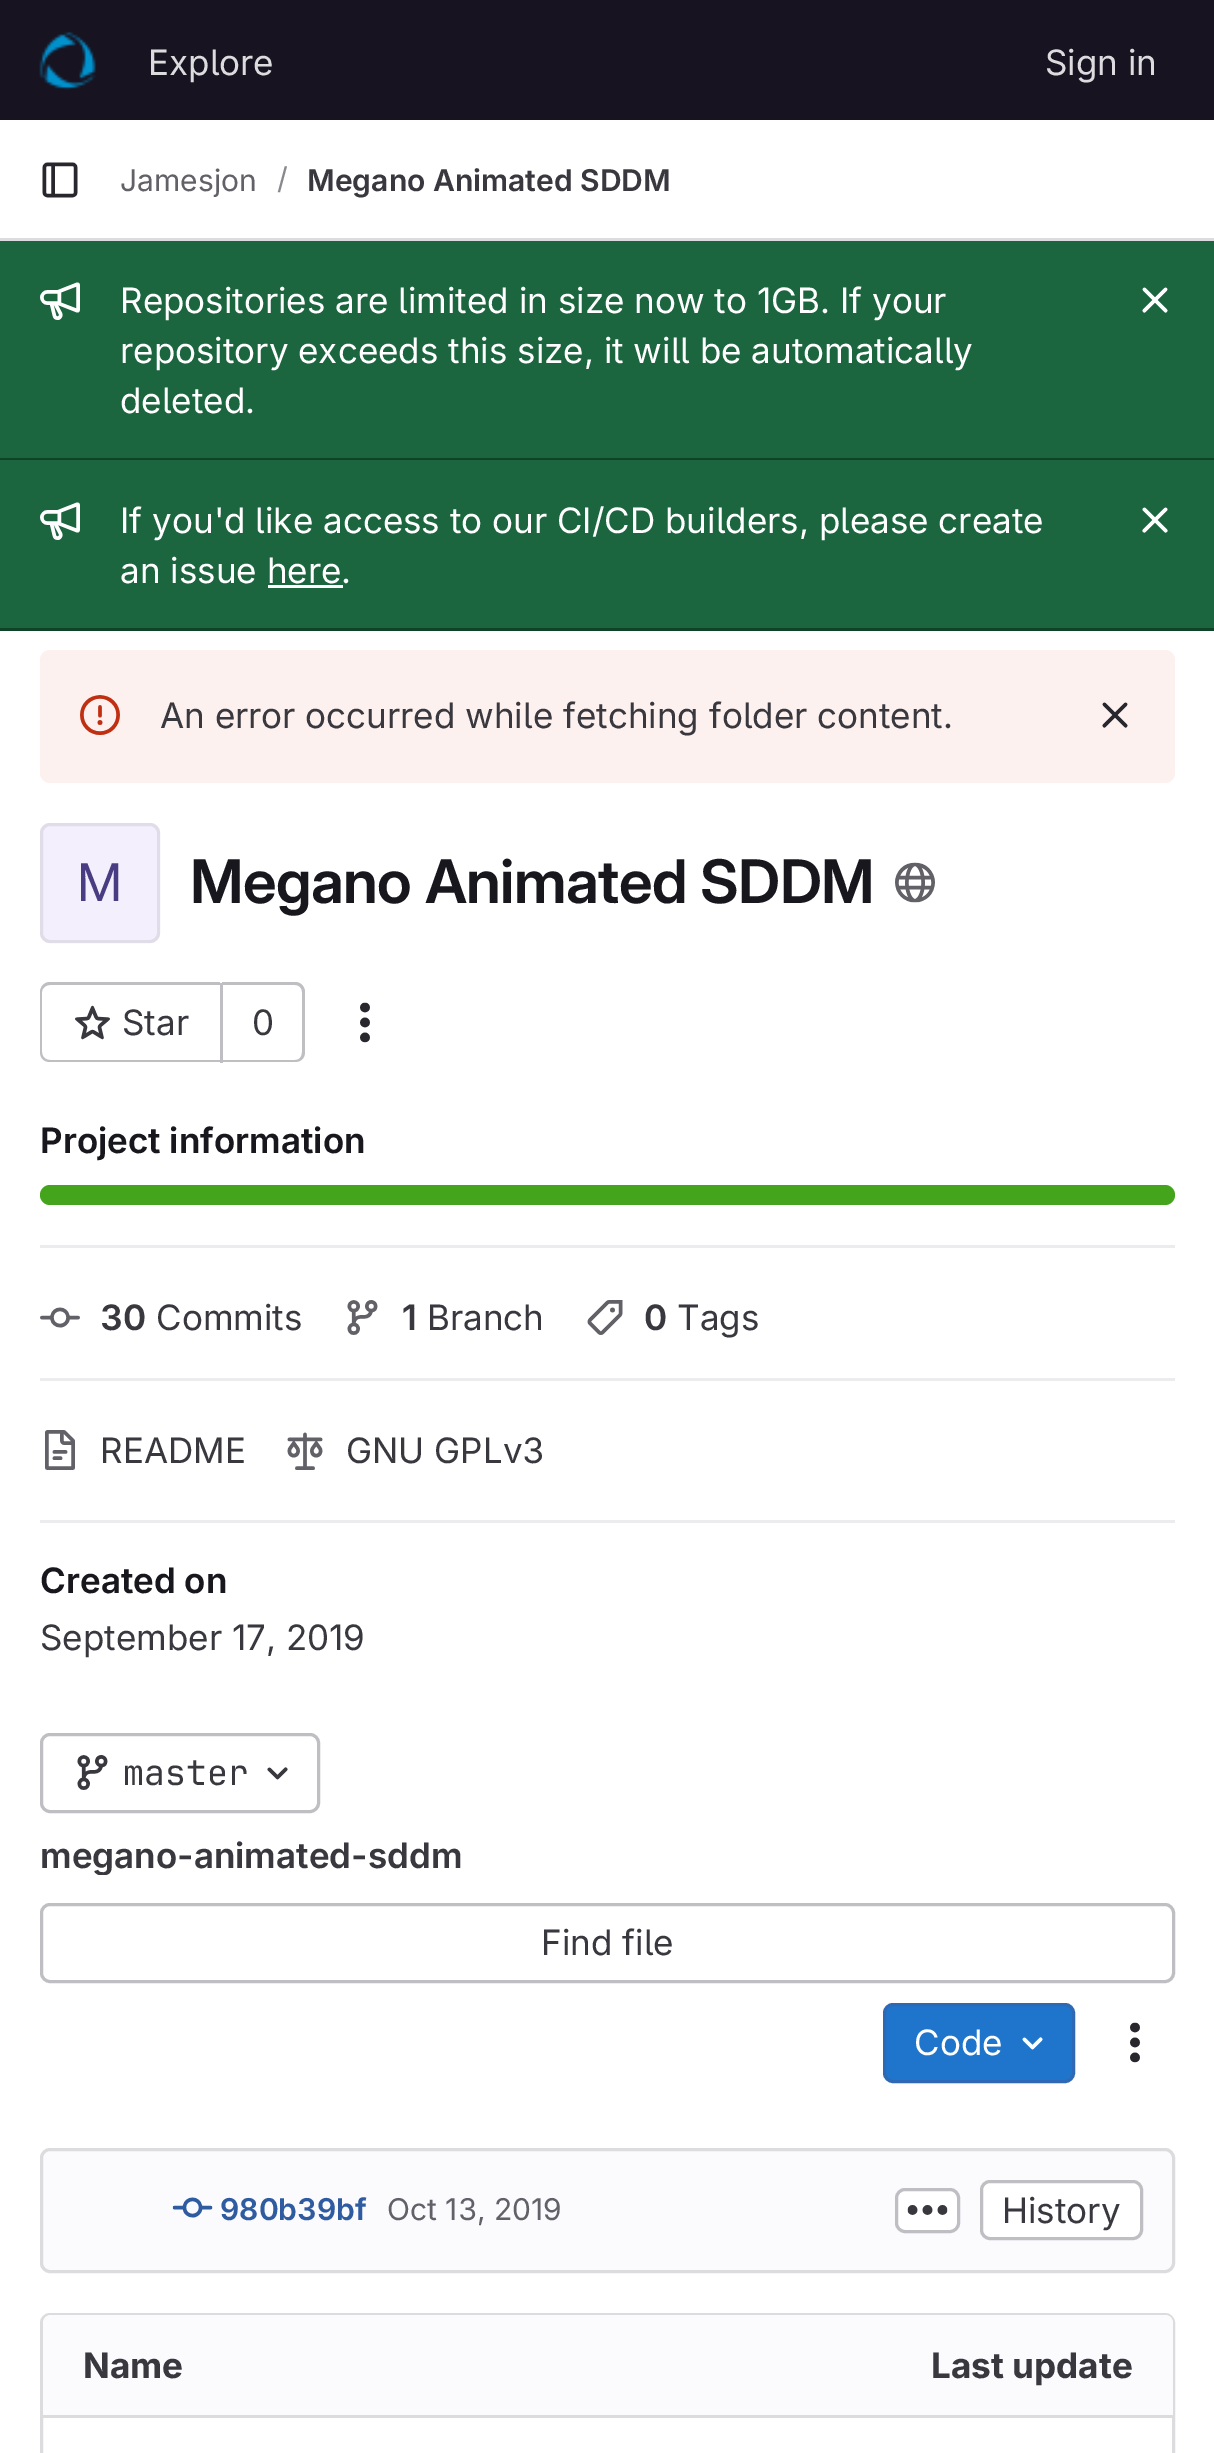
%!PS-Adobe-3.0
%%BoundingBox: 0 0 1214 2453
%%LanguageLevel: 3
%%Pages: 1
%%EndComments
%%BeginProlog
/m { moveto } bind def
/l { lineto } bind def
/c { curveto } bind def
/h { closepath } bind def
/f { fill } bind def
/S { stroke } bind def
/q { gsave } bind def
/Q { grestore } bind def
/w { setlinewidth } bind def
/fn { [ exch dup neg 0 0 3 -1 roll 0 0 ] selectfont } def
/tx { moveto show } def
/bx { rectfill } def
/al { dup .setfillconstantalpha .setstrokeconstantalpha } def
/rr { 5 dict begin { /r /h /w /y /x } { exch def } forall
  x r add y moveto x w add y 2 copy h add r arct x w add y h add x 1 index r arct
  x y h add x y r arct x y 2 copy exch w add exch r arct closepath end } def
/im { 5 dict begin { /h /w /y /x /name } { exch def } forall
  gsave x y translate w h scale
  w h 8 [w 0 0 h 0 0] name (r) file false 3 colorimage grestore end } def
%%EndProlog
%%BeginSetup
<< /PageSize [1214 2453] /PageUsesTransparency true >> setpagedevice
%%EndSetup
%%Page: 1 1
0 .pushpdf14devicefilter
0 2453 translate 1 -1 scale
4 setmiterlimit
1 setgray
0 0 1214 2453 bx
0.09 0.075 0.129 setrgbcolor
0 0 1214 120 bx
(image0.raw) 39 31 57 59 im
/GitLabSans-Regular 35 fn
0.863 0.863 0.871 setrgbcolor
(Explore) 148 75 tx
(Sign in) 1045 75 tx
0 238 1214 3 bx
(image1.raw) 42 162 36 36 im
/GitLabSans-Regular 30 fn
0.384 0.38 0.408 setrgbcolor
(Jamesjon) 120 191 tx
0.537 0.533 0.553 setrgbcolor
(/) 277 189 tx
/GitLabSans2-SemiBold 30 fn
0.227 0.22 0.247 setrgbcolor
(Megano Animated SDDM) 307 191 tx
0.106 0.396 0.247 setrgbcolor
0 241 1214 217 bx
0.055 0.263 0.157 setrgbcolor
0 458 1214 2 bx
(image2.raw) 40 282 40 38 im
/GitLabSans-Regular 35 fn
1 setgray
(Repositories are limited in size now to 1GB. If your) 120 313 tx
(repository exceeds this size, it will be automatically) 120 363 tx
(deleted.) 120 413 tx
(image3.raw) 1142 287 26 26 im
0.106 0.396 0.247 setrgbcolor
0 460 1214 168 bx
0.055 0.263 0.157 setrgbcolor
0 628 1214 3 bx
(image4.raw) 40 502 40 38 im
1 setgray
(If you'd like access to our CI/CD builders, please create) 120 533 tx
(an issue here.) 120 583 tx
268 585 75 3 bx
(image5.raw) 1142 507 26 26 im
0.988 0.945 0.937 setrgbcolor
40 650 1135 133 10 rr f
(image6.raw) 80 695 40 40 im
0.227 0.22 0.247 setrgbcolor
(An error occurred while fetching folder content.) 160 728 tx
(image7.raw) 1102 702 26 26 im
0.953 0.937 0.988 setrgbcolor
40 823 120 120 10 rr f
0.08 al
0.02 0.02 0.024 setrgbcolor
3 w
41.5 824.5 117 117 8.5 rr S
/GitLabSans2-Regular 52 fn
1 al
0.286 0.235 0.514 setrgbcolor
(M) 77 901 tx
/GitLabSans-SemiBold 60 fn
0.094 0.09 0.114 setrgbcolor
190 903 m -0.6 0 (Megano Animated SDDM) ashow
(image8.raw) 895 862 40 41 im
0.749 0.749 0.765 setrgbcolor
50 982 m 220 982 l 220 1062 l 50 1062 l 44 1062 40 1058 40 1052 c 40 992 l 40 987 44 982 50 982 c h 50 985 m 220 985 l 220 1060 l 50 1060 l 46 1060 42 1057 42 1052 c 42 992 l 42 988 46 985 50 985 c h eofill
(image9.raw) 75 1005 35 35 im
/GitLabSans-Regular 35 fn
0.227 0.22 0.247 setrgbcolor
(Star) 122 1035 tx
0.749 0.749 0.765 setrgbcolor
222 982 m 295 982 l 301 982 305 987 305 992 c 305 1052 l 305 1058 301 1062 295 1062 c 222 1062 l h 222 985 m 295 985 l 299 985 302 988 302 992 c 302 1052 l 302 1057 299 1060 295 1060 c 222 1060 l h eofill
220 983 3 80 bx
0.227 0.22 0.247 setrgbcolor
(0) 252 1035 tx
(image10.raw) 360 1002 10 41 im
0.925 0.925 0.937 setrgbcolor
40 1245 1135 3 bx
/GitLabSans2-SemiBold 35 fn
0.094 0.09 0.114 setrgbcolor
(Project information) 40 1153 tx
0.267 0.647 0.11 setrgbcolor
40 1185 1135 20 10 rr f
0.925 0.925 0.937 setrgbcolor
40 1378 1135 3 bx
(image11.raw) 40 1307 40 21 im
0.227 0.22 0.247 setrgbcolor
(30) 100 1330 tx
/GitLabSans-Regular 35 fn
(Commits) 156 1330 tx
(image12.raw) 347 1300 31 35 im
/GitLabSans2-SemiBold 35 fn
(1) 402 1330 tx
/GitLabSans-Regular 35 fn
(Branch) 427 1330 tx
(image13.raw) 587 1300 36 35 im
/GitLabSans2-SemiBold 35 fn
(0) 644 1330 tx
/GitLabSans-Regular 35 fn
(Tags) 677 1330 tx
0.925 0.925 0.937 setrgbcolor
40 1520 1135 3 bx
(image14.raw) 45 1430 30 40 im
0.227 0.22 0.247 setrgbcolor
(README) 100 1463 tx
(image15.raw) 287 1432 36 38 im
(GNU GPLv3) 346 1463 tx
/GitLabSans2-SemiBold 35 fn
0.094 0.09 0.114 setrgbcolor
(Created on) 40 1593 tx
/GitLabSans-Regular 35 fn
0.227 0.22 0.247 setrgbcolor
(September 17, 2019) 40 1650 tx
0.749 0.749 0.765 setrgbcolor
41.5 1734.5 277 77 8.5 rr S
(image16.raw) 77 1755 31 35 im
/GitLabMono-Regular 35 fn
0.227 0.22 0.247 setrgbcolor
(master) 123 1785 tx
(image17.raw) 267 1767 21 13 im
q
40 1833 423 42 10 rr clip newpath
/GitLabSans2-SemiBold 35 fn
(megano-animated-sddm) 40 1868 tx
Q
0.749 0.749 0.765 setrgbcolor
41.5 1904.5 1132 77 8.5 rr S
/GitLabSans-Regular 35 fn
0.227 0.22 0.247 setrgbcolor
(Find file) 541 1955 tx
0.122 0.459 0.796 setrgbcolor
884.5 2004.5 189 77 8.5 rr q f Q
0.184 0.408 0.706 setrgbcolor
S
1 setgray
(Code) 914 2055 tx
(image18.raw) 1022 2037 21 13 im
(image19.raw) 1130 2022 10 41 im
0.984 0.98 0.992 setrgbcolor
41.5 2149.5 1132 122 8.5 rr q f Q
0.863 0.863 0.871 setrgbcolor
S
(image20.raw) 172 2197 41 21 im
/GitLabSans2-SemiBold 30 fn
0.184 0.361 0.627 setrgbcolor
(980b39bf) 220 2220 tx
/GitLabSans-Regular 30 fn
0.384 0.38 0.408 setrgbcolor
(Oct 13, 2019) 387 2220 tx
1 setgray
896.5 2189.5 62 42 8.5 rr q f Q
0.749 0.749 0.765 setrgbcolor
S
(image21.raw) 907 2205 41 10 im
1 setgray
981.5 2181.5 160 57 8.5 rr q f Q
0.749 0.749 0.765 setrgbcolor
S
/GitLabSans-Regular 35 fn
0.227 0.22 0.247 setrgbcolor
(History) 1002 2223 tx
0.863 0.863 0.871 setrgbcolor
41.5 2314.5 1132 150 8.5 rr S
0.984 0.98 0.992 setrgbcolor
51 2315 m 608 2315 l 608 2418 l 43 2418 l 43 2323 l 43 2318.5 46.5 2315 51 2315 c h f
/GitLabSans-Bold 35 fn
0.227 0.22 0.247 setrgbcolor
(Name) 83 2378 tx
0.984 0.98 0.992 setrgbcolor
608 2315 m 1165 2315 l 1169.5 2315 1173 2318.5 1173 2323 c 1173 2418 l 608 2418 l h f
0.227 0.22 0.247 setrgbcolor
(Last update) 931 2378 tx
0.863 0.863 0.871 setrgbcolor
43 2415 1130 3 bx
.poppdf14devicefilter showpage
%%EOF
